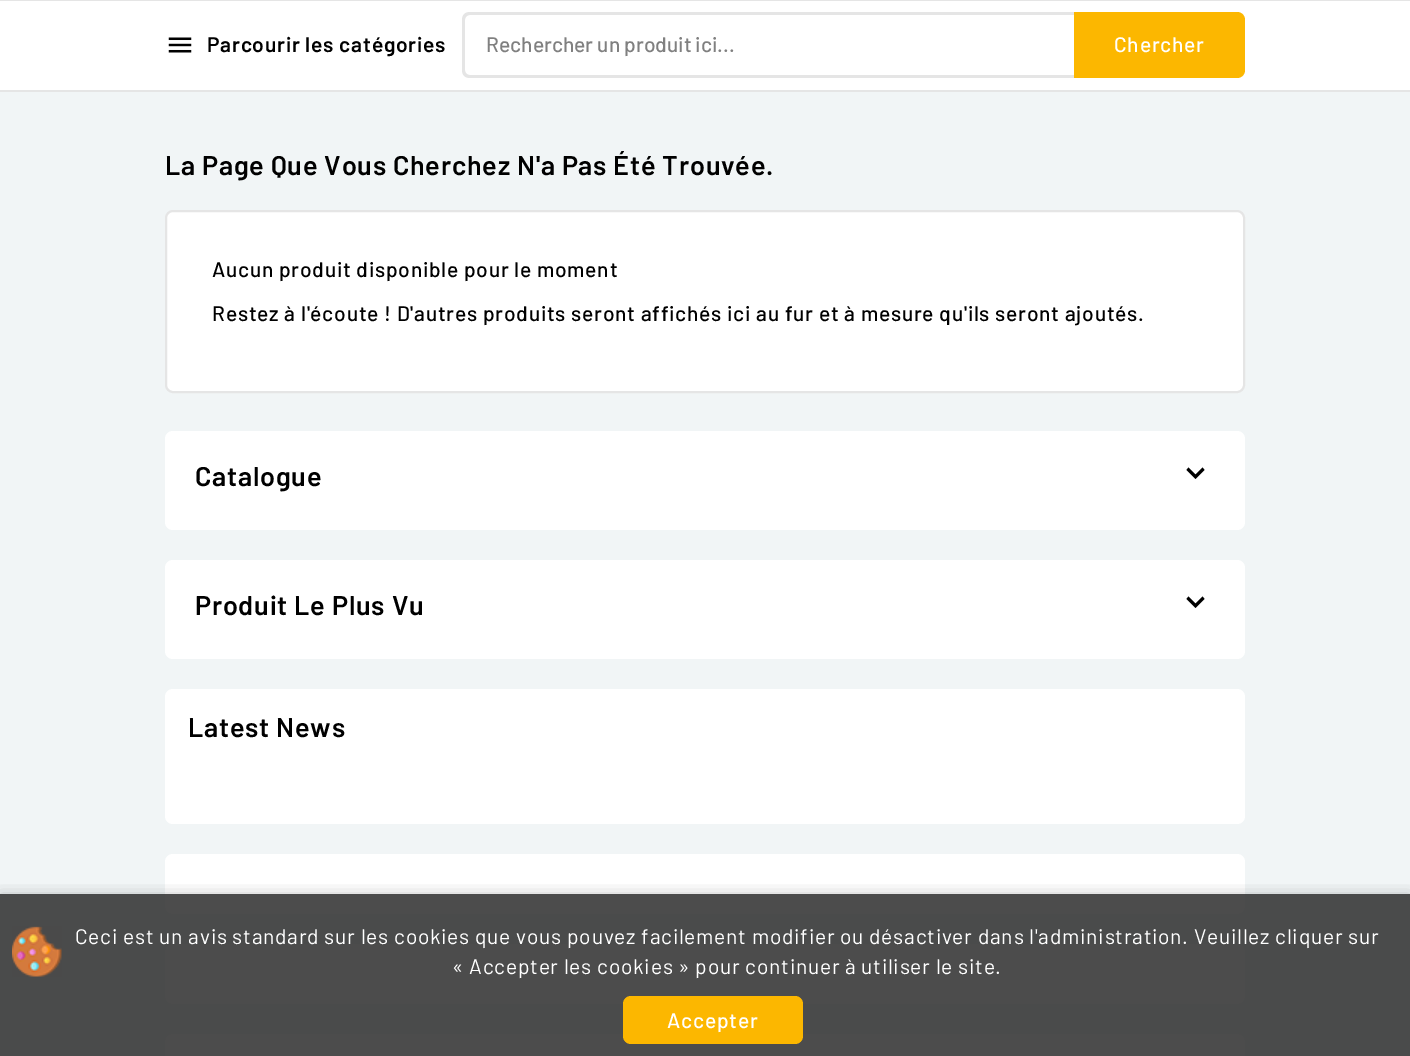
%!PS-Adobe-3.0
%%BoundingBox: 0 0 1410 1056
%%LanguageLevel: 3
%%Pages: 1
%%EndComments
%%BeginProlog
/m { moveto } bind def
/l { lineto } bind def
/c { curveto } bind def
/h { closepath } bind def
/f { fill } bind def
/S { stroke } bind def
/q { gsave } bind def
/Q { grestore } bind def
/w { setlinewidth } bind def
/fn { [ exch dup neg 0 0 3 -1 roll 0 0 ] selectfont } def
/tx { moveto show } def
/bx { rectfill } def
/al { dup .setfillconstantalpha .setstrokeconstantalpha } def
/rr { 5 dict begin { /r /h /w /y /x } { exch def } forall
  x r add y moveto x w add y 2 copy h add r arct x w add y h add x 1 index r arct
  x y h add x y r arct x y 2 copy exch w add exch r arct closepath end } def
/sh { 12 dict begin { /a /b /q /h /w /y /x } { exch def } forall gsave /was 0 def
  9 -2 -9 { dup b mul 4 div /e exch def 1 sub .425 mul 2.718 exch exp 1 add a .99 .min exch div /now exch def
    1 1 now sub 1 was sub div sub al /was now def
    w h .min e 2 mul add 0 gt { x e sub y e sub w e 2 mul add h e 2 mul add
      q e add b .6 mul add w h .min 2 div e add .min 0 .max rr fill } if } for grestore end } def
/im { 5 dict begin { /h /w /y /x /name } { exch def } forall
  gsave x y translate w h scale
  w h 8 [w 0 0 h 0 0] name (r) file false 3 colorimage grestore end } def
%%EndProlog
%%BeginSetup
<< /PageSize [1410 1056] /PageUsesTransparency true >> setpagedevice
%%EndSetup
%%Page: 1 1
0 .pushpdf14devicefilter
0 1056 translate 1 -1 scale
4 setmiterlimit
0.945 0.961 0.965 setrgbcolor
0 0 1410 1056 bx
1 setgray
0 1 1410 89 bx
0.898 setgray
0 0 1410 1 bx
0 90 1410 2 bx
(image0.raw) 168 37 24 16 im
/Barlow-SemiBold 21 fn
0 setgray
207 52 m 0.75 0 (Parcourir les catégories) ashow
0.898 setgray
470 12 m 1074 12 l 1074 78 l 470 78 l 465 78 462 75 462 70 c 462 20 l 462 15 465 12 470 12 c h 470 15 m 1074 15 l 1074 75 l 470 75 l 467 75 465 73 465 70 c 465 20 l 465 17 467 15 470 15 c h eofill
/Barlow-Medium 21 fn
0.502 setgray
(Rechercher un produit ici...) 486 52 tx
0.988 0.718 0 setrgbcolor
1074 12 m 1237 12 l 1241.5 12 1245 15.5 1245 20 c 1245 70 l 1245 74.5 1241.5 78 1237 78 c 1074 78 l h f
1 setgray
1114 52 m 0.75 0 (Chercher) ashow
/Barlow-SemiBold 27 fn
0 setgray
165 175 m 0.75 0 (La Page Que Vous Cherchez N'a Pas Été Trouvée.) ashow
1 setgray
166 211 1078 181 7 rr q f Q
0.898 setgray
2 w
S
/Barlow-Medium 21 fn
0 setgray
212 277 m 0.75 0 (Aucun produit disponible pour le moment) ashow
212 321 m 0.75 0 (Restez à l'écoute ! D'autres produits seront affichés ici au fur et à mesure qu'ils seront ajoutés.) ashow
1 setgray
165 431 1080 99 8 rr f
/Barlow-SemiBold 27 fn
0 setgray
195 486 m 0.75 0 (Catalogue) ashow
1188.5 467.5 m 1195.5 474.5 l 1202.5 467.5 l 1204.5 470 l 1195.5 479 l 1186.5 470 l h f
1 setgray
165 560 1080 99 8 rr f
0 setgray
195 615 m 0.75 0 (Produit Le Plus Vu) ashow
1188.5 596.5 m 1195.5 603.5 l 1202.5 596.5 l 1204.5 599 l 1195.5 608 l 1186.5 599 l h f
1 setgray
165 689 1080 135 8 rr f
0 setgray
188 737 m 0.75 0 (Latest News) ashow
1 setgray
165 854 1080 60 8 rr f
165 944 1080 60 8 rr f
165 1034 1080 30 8 rr f
q
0 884 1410 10 rectclip
0 setgray
0 894 1410 162 0 7.5 0.2 sh
Q
0.88 al
0.2 setgray
0 894 1410 162 bx
1 al
(image1.raw) 12 926 50 51 im
/Barlow-Regular 21 fn
1 setgray
75 944 m 0.75 0 (Ceci est un avis standard sur les cookies que vous pouvez facilement modifier ou désactiver dans l'administration. Veuillez cliquer sur) ashow
452 974 m 0.75 0 (« Accepter les cookies » pour continuer à utiliser le site.) ashow
0.988 0.718 0 setrgbcolor
623 996 180 48 8 rr f
/Barlow-Medium 21 fn
1 setgray
667 1028 m 0.75 0 (Accepter) ashow
.poppdf14devicefilter showpage
%%EOF
